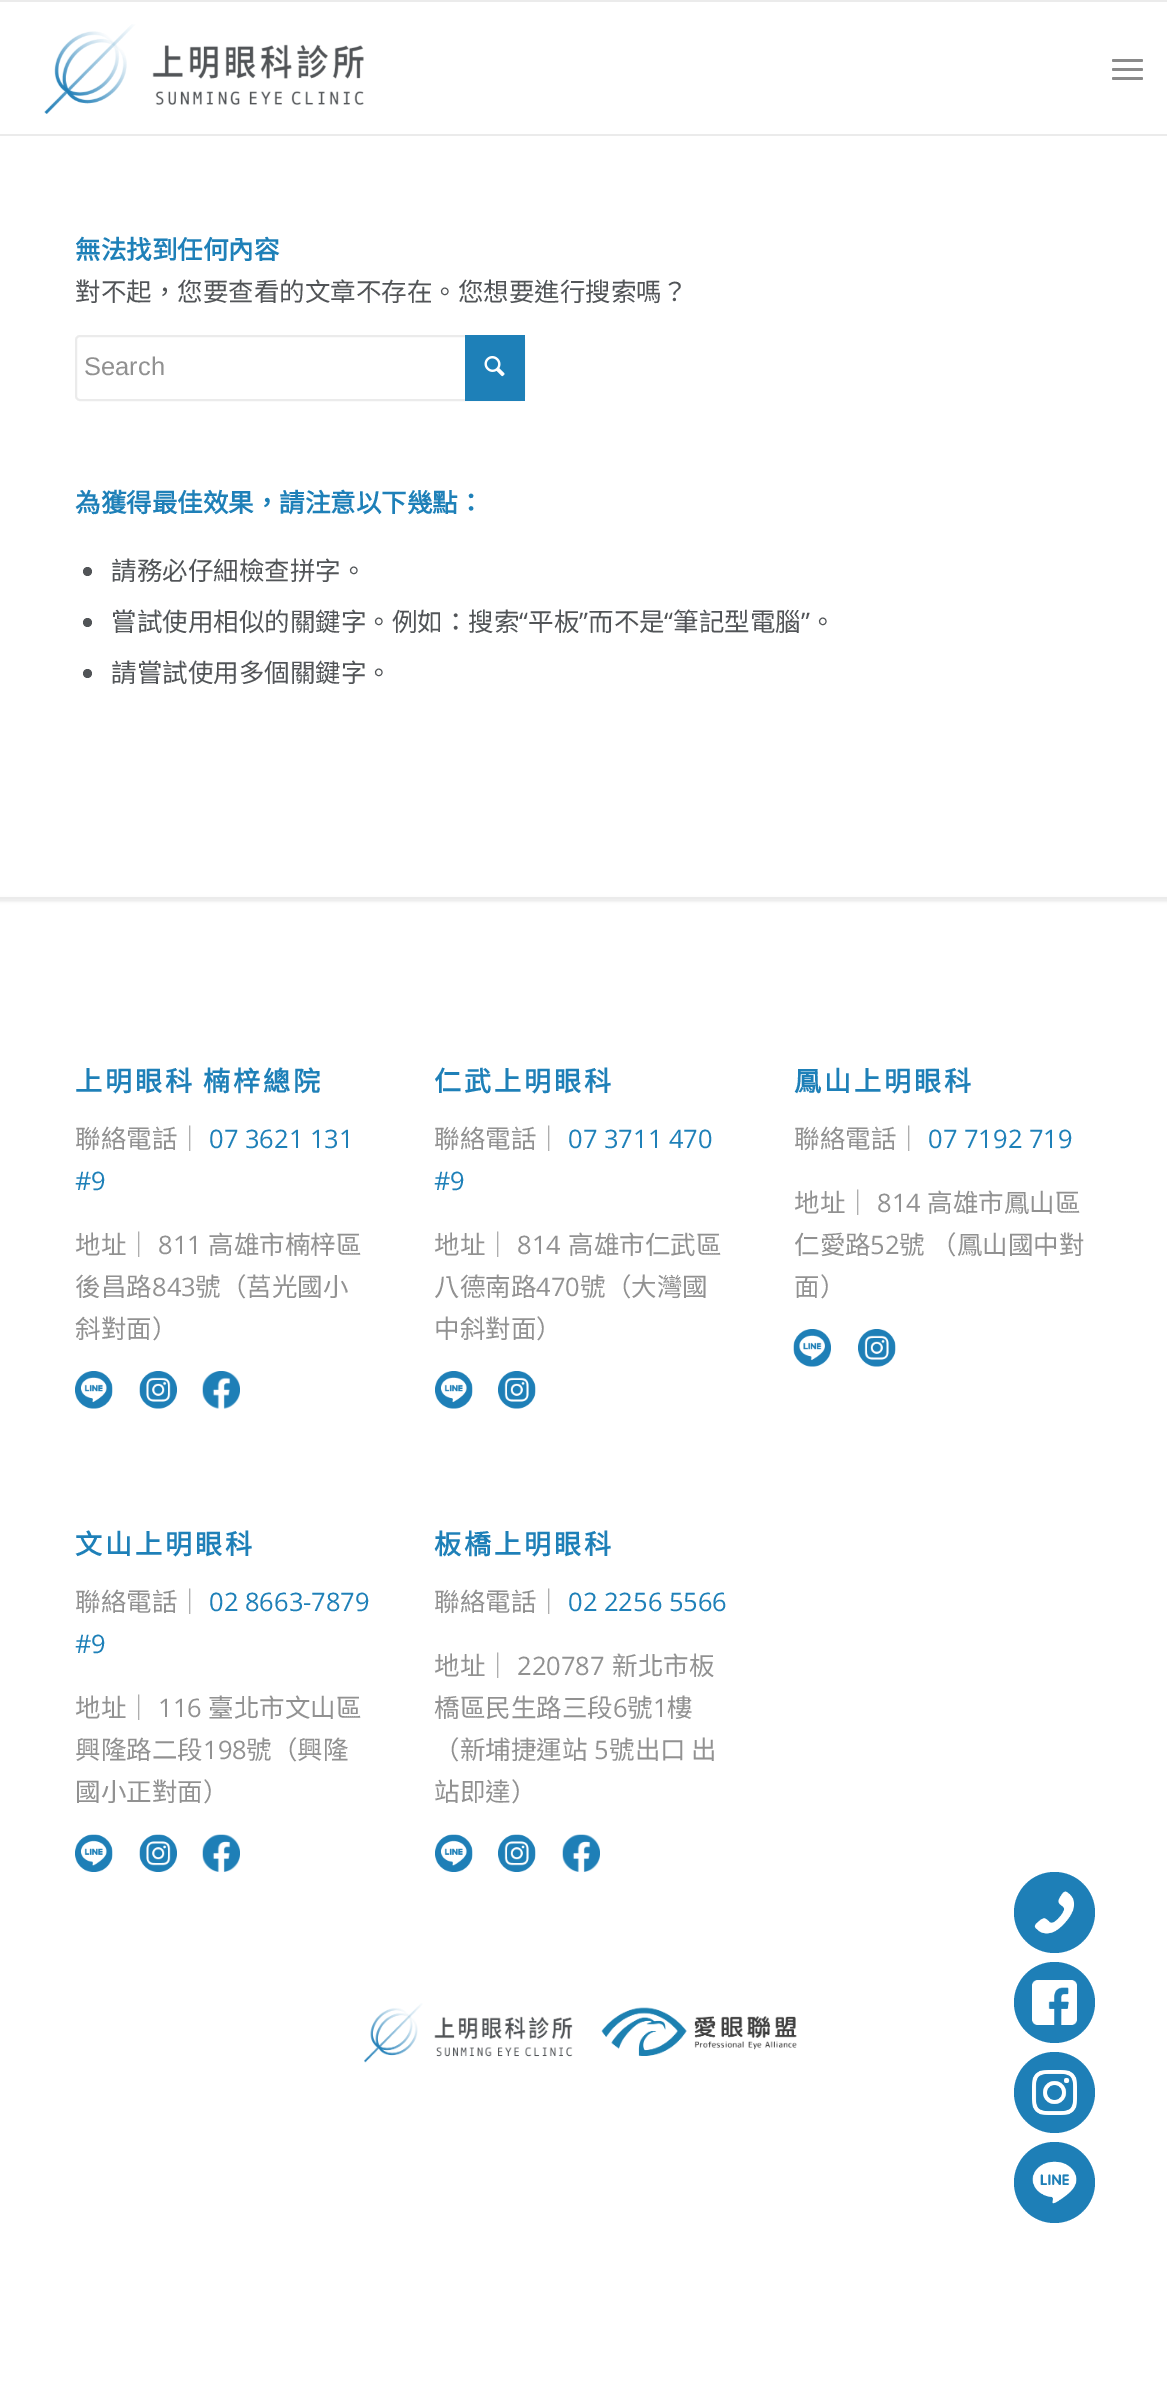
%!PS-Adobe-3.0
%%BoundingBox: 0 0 1167 2403
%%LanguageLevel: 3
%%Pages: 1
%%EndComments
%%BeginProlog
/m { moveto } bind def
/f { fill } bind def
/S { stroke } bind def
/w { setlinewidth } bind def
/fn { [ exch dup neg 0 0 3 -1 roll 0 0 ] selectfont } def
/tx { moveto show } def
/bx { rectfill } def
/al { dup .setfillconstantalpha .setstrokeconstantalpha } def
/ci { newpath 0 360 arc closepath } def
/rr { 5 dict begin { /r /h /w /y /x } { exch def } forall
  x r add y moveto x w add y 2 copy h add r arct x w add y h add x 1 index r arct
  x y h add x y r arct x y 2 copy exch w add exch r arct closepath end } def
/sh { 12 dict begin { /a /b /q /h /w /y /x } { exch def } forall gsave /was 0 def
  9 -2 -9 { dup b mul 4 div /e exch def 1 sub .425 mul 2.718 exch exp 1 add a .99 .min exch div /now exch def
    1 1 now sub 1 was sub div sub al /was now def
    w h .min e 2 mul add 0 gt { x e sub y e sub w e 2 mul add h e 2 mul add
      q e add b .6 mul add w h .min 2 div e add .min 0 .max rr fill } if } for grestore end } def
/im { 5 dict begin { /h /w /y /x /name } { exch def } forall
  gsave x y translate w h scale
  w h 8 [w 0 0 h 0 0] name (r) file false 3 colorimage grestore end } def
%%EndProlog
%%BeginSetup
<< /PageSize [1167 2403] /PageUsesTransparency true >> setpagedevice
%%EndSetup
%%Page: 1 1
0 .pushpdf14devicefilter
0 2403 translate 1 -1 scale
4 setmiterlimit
1 setgray
0 0 1167 2403 bx
0.922 setgray
0 0 1167 2 bx
0 134 1167 2 bx
(image0.raw) 44 24 320 90 im
0.541 setgray
1112 68 31 3 1.5 rr f
1112 59 31 3 1.5 rr f
1112 77 31 3 1.5 rr f
/NotoSansCJKTC-Bold 25.5 fn
0.118 0.502 0.722 setrgbcolor
(無法找到任何內容) 75 259 tx
/NotoSansCJKTC-Regular 25.5 fn
0.318 0.329 0.341 setrgbcolor
(對不起，您要查看的文章不存在。您想要進行搜索嗎？) 75 301 tx
0.922 setgray
2 w
76 336 448 64 4 rr S
/LiberationSans-Regular 25.5 fn
0.569 setgray
(Search) 84 375 tx
0.118 0.502 0.722 setrgbcolor
465 335 60 66 bx
(image1.raw) 484 356 21 21 im
/NotoSansCJKTC-Bold 25.5 fn
(為獲得最佳效果，請注意以下幾點：) 75 512 tx
0.318 0.329 0.341 setrgbcolor
87.5 571.5 4.5 ci f
/NotoSansCJKTC-Regular 25.5 fn
(請務必仔細檢查拼字。) 111 580 tx
(嘗試使用相似的關鍵字。例如：搜索) 111 631 tx
/OpenSans-Regular 25.5 fn
(“) 519 631 tx
/NotoSansCJKTC-Regular 25.5 fn
(平板) 528 631 tx
/OpenSans-Regular 25.5 fn
(”) 579 631 tx
/NotoSansCJKTC-Regular 25.5 fn
(而不是) 588 631 tx
/OpenSans-Regular 25.5 fn
(“) 664 631 tx
/NotoSansCJKTC-Regular 25.5 fn
(筆記型電腦) 673 631 tx
/OpenSans-Regular 25.5 fn
(”) 801 631 tx
87.5 622.5 4.5 ci f
/NotoSansCJKTC-Regular 25.5 fn
(。) 810 631 tx
87.5 673.5 4.5 ci f
(請嘗試使用多個關鍵字。) 111 682 tx
0 setgray
-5 899 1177 2 0 1.5 0.1 sh
0.922 setgray
0 897 1167 2 bx
/NotoSansCJKTC-Bold 27 fn
0.118 0.502 0.722 setrgbcolor
75 1091 m -1 0 32 3 0 (上明眼科 楠梓總院) awidthshow
/NotoSansCJKTC-Regular 25.5 fn
0.569 setgray
(聯絡電話｜) 75 1148 tx
/OpenSans-Regular 25.5 fn
0.118 0.502 0.722 setrgbcolor
(07 3621 131) 209 1148 tx
(#9) 75 1190 tx
/NotoSansCJKTC-Regular 25.5 fn
0.569 setgray
(地址｜) 75 1254 tx
/OpenSans-Regular 25.5 fn
(811) 158 1254 tx
/NotoSansCJKTC-Regular 25.5 fn
(高雄市楠梓區) 208 1254 tx
(後昌路) 75 1296 tx
/OpenSans-Regular 25.5 fn
(843) 152 1296 tx
/NotoSansCJKTC-Regular 25.5 fn
(號（莒光國小) 195 1296 tx
(斜對面）) 75 1338 tx
(image2.raw) 75 1371 38 38 im
(image3.raw) 139 1371 38 38 im
(image4.raw) 202 1371 38 38 im
/NotoSansCJKTC-Bold 27 fn
0.118 0.502 0.722 setrgbcolor
434 1091 m 3 0 (仁武上明眼科) ashow
/NotoSansCJKTC-Regular 25.5 fn
0.569 setgray
(聯絡電話｜) 434 1148 tx
/OpenSans-Regular 25.5 fn
0.118 0.502 0.722 setrgbcolor
(07 3711 470) 568 1148 tx
(#9) 434 1190 tx
/NotoSansCJKTC-Regular 25.5 fn
0.569 setgray
(地址｜) 434 1254 tx
/OpenSans-Regular 25.5 fn
(814) 517 1254 tx
/NotoSansCJKTC-Regular 25.5 fn
(高雄市仁武區) 568 1254 tx
(八德南路) 434 1296 tx
/OpenSans-Regular 25.5 fn
(470) 536 1296 tx
/NotoSansCJKTC-Regular 25.5 fn
(號（大灣國) 580 1296 tx
(中斜對面）) 434 1338 tx
(image5.raw) 435 1371 38 38 im
(image6.raw) 498 1371 38 38 im
/NotoSansCJKTC-Bold 27 fn
0.118 0.502 0.722 setrgbcolor
794 1091 m 3 0 (鳳山上明眼科) ashow
/NotoSansCJKTC-Regular 25.5 fn
0.569 setgray
(聯絡電話｜) 794 1148 tx
/OpenSans-Regular 25.5 fn
0.118 0.502 0.722 setrgbcolor
(07 7192 719) 928 1148 tx
/NotoSansCJKTC-Regular 25.5 fn
0.569 setgray
(地址｜) 794 1212 tx
/OpenSans-Regular 25.5 fn
(814) 877 1212 tx
/NotoSansCJKTC-Regular 25.5 fn
(高雄市鳳山區) 927 1212 tx
(仁愛路) 794 1254 tx
/OpenSans-Regular 25.5 fn
(52) 870 1254 tx
/NotoSansCJKTC-Regular 25.5 fn
899 1254 m 1 0 32 (號 （鳳山國中對) widthshow
(面）) 794 1296 tx
(image7.raw) 793 1329 38 38 im
(image8.raw) 858 1329 38 38 im
/NotoSansCJKTC-Bold 27 fn
0.118 0.502 0.722 setrgbcolor
75 1554 m 3 0 (文山上明眼科) ashow
/NotoSansCJKTC-Regular 25.5 fn
0.569 setgray
(聯絡電話｜) 75 1611 tx
/OpenSans-Regular 25.5 fn
0.118 0.502 0.722 setrgbcolor
(02 8663-7879) 209 1611 tx
(#9) 75 1653 tx
/NotoSansCJKTC-Regular 25.5 fn
0.569 setgray
(地址｜) 75 1717 tx
/OpenSans-Regular 25.5 fn
(116) 158 1717 tx
/NotoSansCJKTC-Regular 25.5 fn
(臺北市文山區) 208 1717 tx
(興隆路二段) 75 1759 tx
/OpenSans-Regular 25.5 fn
(198) 203 1759 tx
/NotoSansCJKTC-Regular 25.5 fn
(號（興隆) 246 1759 tx
(國小正對面）) 75 1801 tx
(image9.raw) 75 1834 38 38 im
(image10.raw) 139 1834 38 38 im
(image11.raw) 202 1834 38 38 im
/NotoSansCJKTC-Bold 27 fn
0.118 0.502 0.722 setrgbcolor
434 1554 m 3 0 (板橋上明眼科) ashow
/NotoSansCJKTC-Regular 25.5 fn
0.569 setgray
(聯絡電話｜) 434 1611 tx
/OpenSans-Regular 25.5 fn
0.118 0.502 0.722 setrgbcolor
(02 2256 5566) 568 1611 tx
/NotoSansCJKTC-Regular 25.5 fn
0.569 setgray
(地址｜) 434 1675 tx
/OpenSans-Regular 25.5 fn
(220787) 517 1675 tx
/NotoSansCJKTC-Regular 25.5 fn
(新北市板) 612 1675 tx
(橋區民生路三段) 434 1717 tx
/OpenSans-Regular 25.5 fn
(6) 613 1717 tx
/NotoSansCJKTC-Regular 25.5 fn
(號) 627 1717 tx
/OpenSans-Regular 25.5 fn
(1) 653 1717 tx
/NotoSansCJKTC-Regular 25.5 fn
(樓) 667 1717 tx
(（新埔捷運站) 434 1759 tx
/OpenSans-Regular 25.5 fn
(5) 594 1759 tx
/NotoSansCJKTC-Regular 25.5 fn
(號出口 出) 609 1759 tx
(站即達）) 434 1801 tx
(image12.raw) 435 1834 38 38 im
(image13.raw) 498 1834 38 38 im
(image14.raw) 562 1834 38 38 im
(image15.raw) 364 2003 209 60 im
(image16.raw) 601 2007 196 49 im
0.118 0.498 0.718 setrgbcolor
1054.5 1912.5 40.5 ci f
(image17.raw) 1034 1891 41 43 im
1054.5 2002.5 40.5 ci f
(image18.raw) 1032 1980 45 45 im
1054.5 2092.5 40.5 ci f
(image19.raw) 1032 2070 45 45 im
1054.5 2182.5 40.5 ci f
(image20.raw) 1032 2161 45 43 im
.poppdf14devicefilter showpage
%%EOF
